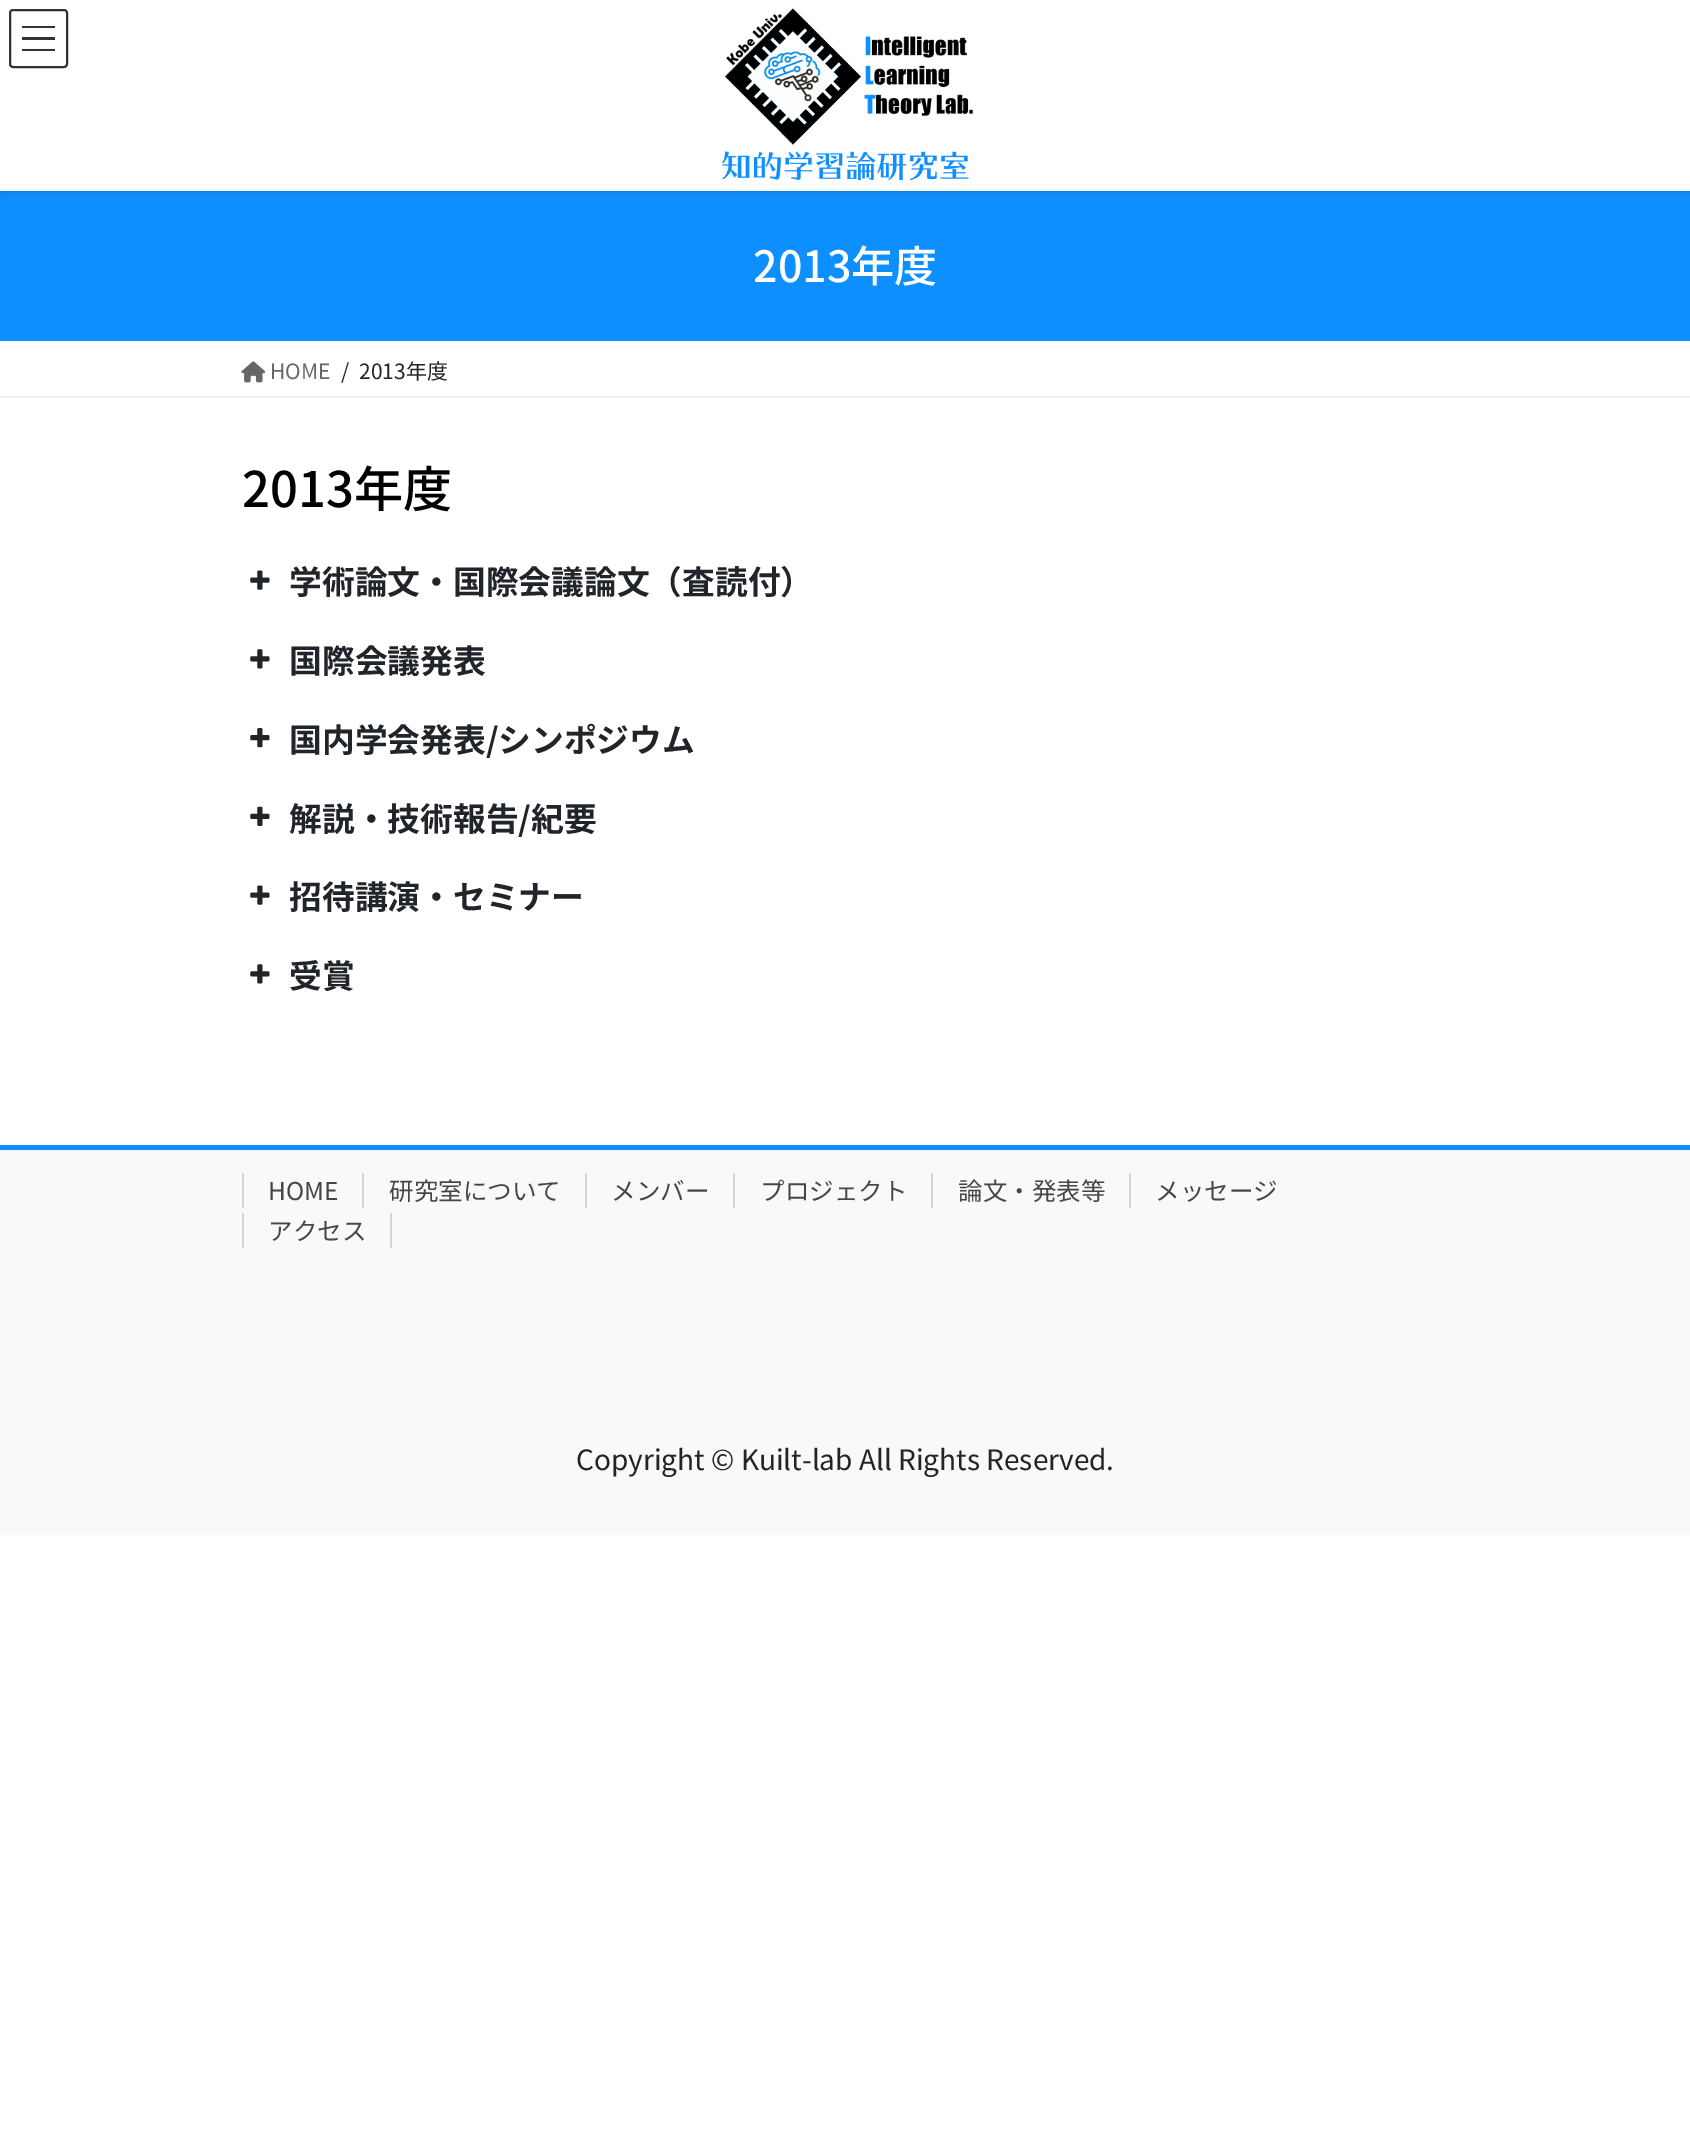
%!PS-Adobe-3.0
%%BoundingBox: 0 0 1690 2156
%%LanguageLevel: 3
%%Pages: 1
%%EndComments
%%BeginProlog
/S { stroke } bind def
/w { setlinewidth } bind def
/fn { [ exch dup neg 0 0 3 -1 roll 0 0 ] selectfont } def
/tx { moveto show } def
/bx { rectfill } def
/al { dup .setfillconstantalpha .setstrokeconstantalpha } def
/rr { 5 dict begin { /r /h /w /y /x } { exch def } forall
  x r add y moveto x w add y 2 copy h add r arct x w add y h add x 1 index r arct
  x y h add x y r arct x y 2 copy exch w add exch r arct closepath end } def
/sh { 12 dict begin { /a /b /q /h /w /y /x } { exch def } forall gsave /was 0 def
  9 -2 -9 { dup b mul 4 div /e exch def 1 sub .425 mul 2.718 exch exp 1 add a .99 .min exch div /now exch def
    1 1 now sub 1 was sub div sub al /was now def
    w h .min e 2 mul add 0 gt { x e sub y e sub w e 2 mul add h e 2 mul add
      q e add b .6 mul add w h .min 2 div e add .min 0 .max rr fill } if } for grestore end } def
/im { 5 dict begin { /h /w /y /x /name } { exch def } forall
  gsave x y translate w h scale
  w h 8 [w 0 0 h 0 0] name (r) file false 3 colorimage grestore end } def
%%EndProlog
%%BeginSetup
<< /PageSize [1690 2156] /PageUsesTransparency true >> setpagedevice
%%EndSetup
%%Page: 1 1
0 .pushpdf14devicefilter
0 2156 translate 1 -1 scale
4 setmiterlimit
1 setgray
0 0 1690 2156 bx
0.055 0.561 1 setrgbcolor
0 191 1690 150 bx
0 setgray
0 2 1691 191 0 2.5 0.1 sh
1 setgray
0 0 1690 191 bx
(image0.raw) 722 8 252 173 im
0.2 setgray
22 26 33 2 bx
22 37 33 3 bx
22 49 33 2 bx
2 w
10 10 57 57 3 rr S
/NotoSansJP-Medium 43 fn
1 setgray
(2013年度) 753 282 tx
0.949 setgray
0 396 1690 2 bx
(image1.raw) 241 361 25 22 im
/NotoSansJP-Regular 21 fn
0.4 setgray
(HOME) 270 379 tx
0.129 0.145 0.161 setrgbcolor
(/) 341 379 tx
(2013年度) 359 379 tx
/NotoSansJP-Medium 49 fn
0 setgray
(2013年度) 242 507 tx
(image2.raw) 250 570 20 20 im
/NotoSansJP-Bold 32.75 fn
0.129 0.145 0.161 setrgbcolor
(学術論文・国際会議論文（査読付）) 289 594 tx
(image3.raw) 250 649 20 20 im
(国際会議発表) 289 673 tx
(image4.raw) 250 728 20 20 im
(国内学会発表/シンポジウム) 289 752 tx
(image5.raw) 250 806 20 20 im
(解説・技術報告/紀要) 289 831 tx
(image2.raw) 250 885 20 20 im
(招待講演・セミナー) 289 909 tx
(image3.raw) 250 964 20 20 im
(受賞) 289 988 tx
0.976 setgray
0 1150 1690 385 bx
0.055 0.561 1 setrgbcolor
0 1145 1690 5 bx
/NotoSansJP-Regular 24.5 fn
0.275 setgray
(HOME) 268 1200 tx
0.831 setgray
242 1173 2 35 bx
0.275 setgray
(研究室について) 389 1200 tx
0.831 setgray
362 1173 2 35 bx
0.275 setgray
(メンバー) 611 1200 tx
0.831 setgray
585 1173 2 35 bx
0.275 setgray
(プロジェクト) 760 1200 tx
0.831 setgray
733 1173 2 35 bx
0.275 setgray
(論文・発表等) 958 1200 tx
0.831 setgray
931 1173 2 35 bx
0.275 setgray
(メッセージ) 1155 1200 tx
0.831 setgray
1129 1173 2 35 bx
0.275 setgray
(アクセス) 268 1240 tx
0.831 setgray
390 1213 2 35 bx
242 1213 2 35 bx
/NotoSansJP-Regular 28 fn
0.129 0.145 0.161 setrgbcolor
(Copyright © Kuilt-lab All Rights Reserved.) 576 1470 tx
.poppdf14devicefilter showpage
%%EOF
